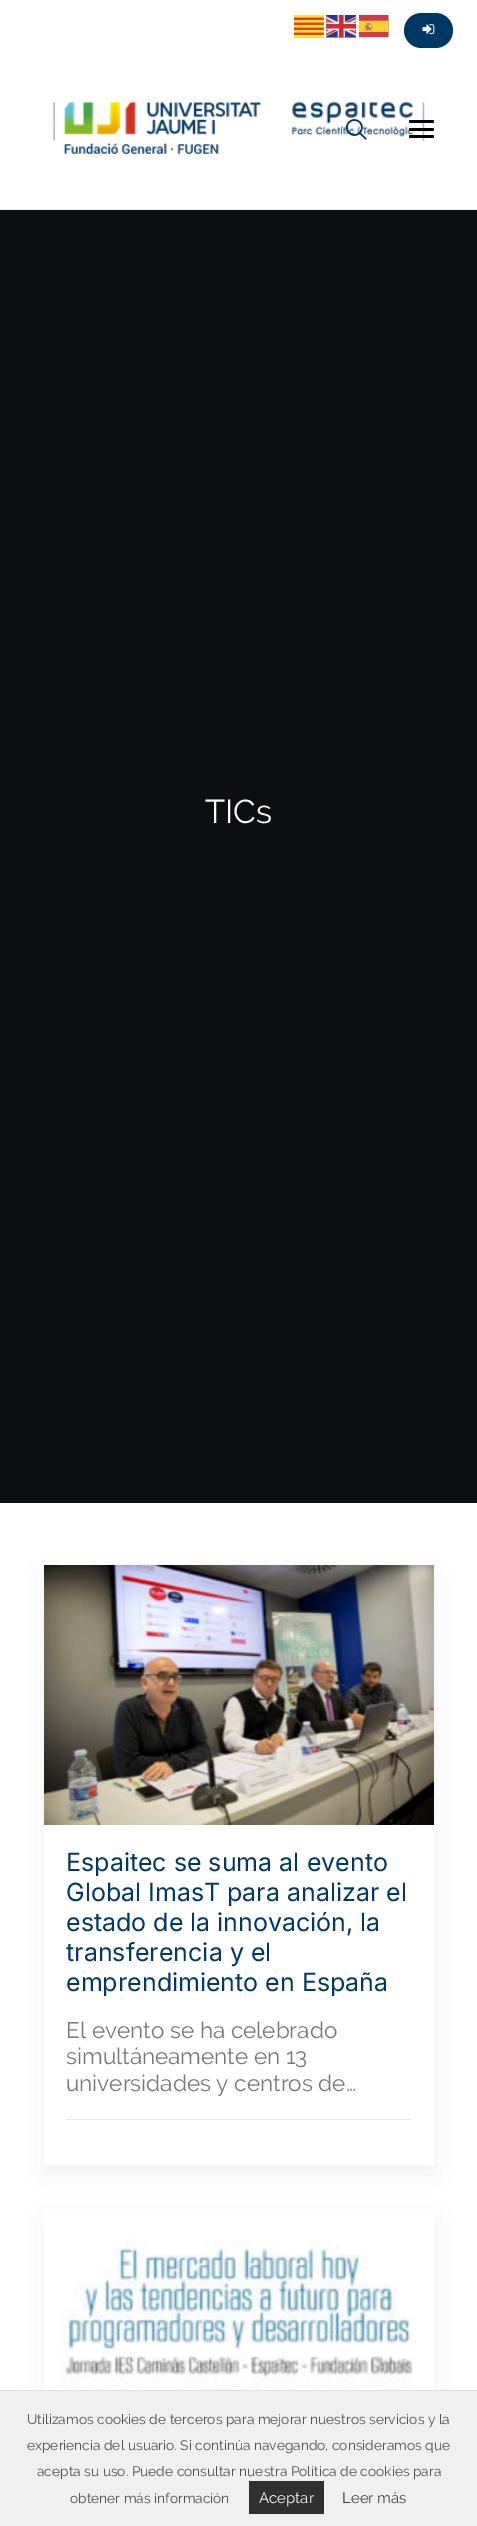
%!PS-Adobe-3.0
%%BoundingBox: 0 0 477 2526
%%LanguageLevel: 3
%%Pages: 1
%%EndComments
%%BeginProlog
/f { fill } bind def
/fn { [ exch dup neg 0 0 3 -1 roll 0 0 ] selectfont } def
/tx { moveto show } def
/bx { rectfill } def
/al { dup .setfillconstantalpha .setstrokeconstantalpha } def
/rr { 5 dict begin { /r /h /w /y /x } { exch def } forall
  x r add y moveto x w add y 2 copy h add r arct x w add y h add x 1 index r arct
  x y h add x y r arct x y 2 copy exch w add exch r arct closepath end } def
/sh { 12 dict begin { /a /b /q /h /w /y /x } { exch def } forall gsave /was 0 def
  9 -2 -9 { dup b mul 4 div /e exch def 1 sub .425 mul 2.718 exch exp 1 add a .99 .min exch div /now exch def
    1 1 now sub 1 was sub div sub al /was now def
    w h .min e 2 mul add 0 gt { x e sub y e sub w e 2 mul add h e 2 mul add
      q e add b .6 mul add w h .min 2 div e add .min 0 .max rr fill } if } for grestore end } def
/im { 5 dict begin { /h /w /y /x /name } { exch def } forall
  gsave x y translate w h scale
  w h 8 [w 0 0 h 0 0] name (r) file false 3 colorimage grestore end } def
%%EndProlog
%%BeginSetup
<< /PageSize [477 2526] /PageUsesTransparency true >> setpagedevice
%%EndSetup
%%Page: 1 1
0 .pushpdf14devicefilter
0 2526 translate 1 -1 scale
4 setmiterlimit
1 setgray
0 0 477 2526 bx
(image0.raw) 294 15 30 23 im
(image1.raw) 326 15 30 23 im
(image2.raw) 359 15 30 23 im
0 0.22 0.396 setrgbcolor
404 13 49 35 17.5 rr f
(image3.raw) 422 24 13 10 im
0.922 setgray
0 209 477 1 bx
(image4.raw) 52 101 373 54 im
(image5.raw) 345 119 22 21 im
0 setgray
409 120 25 3 1.5 rr f
409 128 25 3 1.5 rr f
409 135 25 3 1.5 rr f
0.051 0.055 0.063 setrgbcolor
0 210 477 1293 bx
/Raleway-Regular 33 fn
1 setgray
(TICs) 205 823 tx
0 setgray
44 1574 390 600 0 12.5 0.05 sh
1 setgray
44 1825 390 340 bx
(image6.raw) 44 1565 390 260 im
/Inter-Regular 25 fn
0 0.22 0.396 setrgbcolor
(Espaitec se suma al evento) 66 1871 tx
(Global ImasT para analizar el) 66 1901 tx
(estado de la innovación, la) 66 1931 tx
(transferencia y el) 66 1961 tx
(emprendimiento en España) 66 1991 tx
/Raleway-Regular 22.5 fn
0.467 setgray
(El evento se ha celebrado) 66 2038 tx
(simultáneamente en 13) 66 2064 tx
(universidades y centros de…) 66 2091 tx
0.918 setgray
66 2119 345 1 bx
0 setgray
44 2219 390 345 0 12.5 0.05 sh
1 setgray
44 2210 390 180 bx
(image7.raw) 58 2239 369 151 im
0.941 setgray
0 2391 477 135 bx
0.878 setgray
0 2390 477 1 bx
/Raleway-Regular 13.75 fn
0.314 setgray
(Utilizamos cookies de terceros para mejorar nuestros servicios y la) 27 2424 tx
(experiencia del usuario. Si continúa navegando, consideramos que) 27 2450 tx
(acepta su uso. Puede consultar nuestra Política de cookies para) 37 2476 tx
(obtener más información) 70 2503 tx
0.188 setgray
249 2481 75 33 bx
/Raleway-Regular 15 fn
1 setgray
(Aceptar) 259 2503 tx
0.251 setgray
(Leer más) 342 2503 tx
.poppdf14devicefilter showpage
%%EOF
